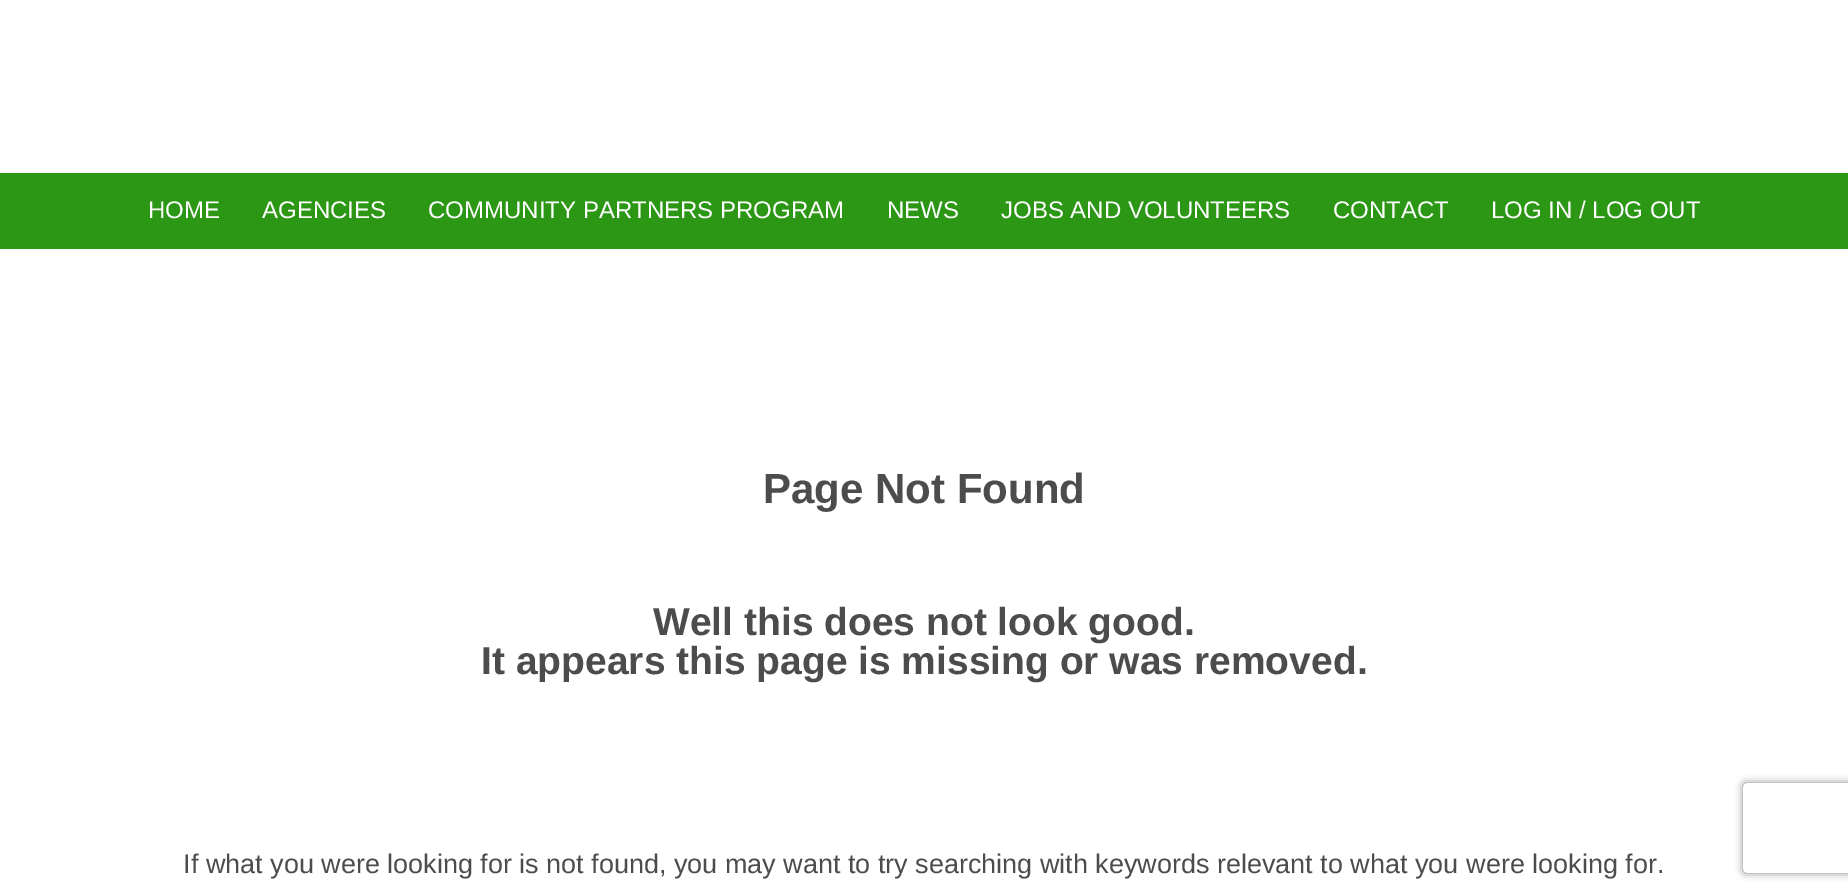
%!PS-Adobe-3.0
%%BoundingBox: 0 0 1848 894
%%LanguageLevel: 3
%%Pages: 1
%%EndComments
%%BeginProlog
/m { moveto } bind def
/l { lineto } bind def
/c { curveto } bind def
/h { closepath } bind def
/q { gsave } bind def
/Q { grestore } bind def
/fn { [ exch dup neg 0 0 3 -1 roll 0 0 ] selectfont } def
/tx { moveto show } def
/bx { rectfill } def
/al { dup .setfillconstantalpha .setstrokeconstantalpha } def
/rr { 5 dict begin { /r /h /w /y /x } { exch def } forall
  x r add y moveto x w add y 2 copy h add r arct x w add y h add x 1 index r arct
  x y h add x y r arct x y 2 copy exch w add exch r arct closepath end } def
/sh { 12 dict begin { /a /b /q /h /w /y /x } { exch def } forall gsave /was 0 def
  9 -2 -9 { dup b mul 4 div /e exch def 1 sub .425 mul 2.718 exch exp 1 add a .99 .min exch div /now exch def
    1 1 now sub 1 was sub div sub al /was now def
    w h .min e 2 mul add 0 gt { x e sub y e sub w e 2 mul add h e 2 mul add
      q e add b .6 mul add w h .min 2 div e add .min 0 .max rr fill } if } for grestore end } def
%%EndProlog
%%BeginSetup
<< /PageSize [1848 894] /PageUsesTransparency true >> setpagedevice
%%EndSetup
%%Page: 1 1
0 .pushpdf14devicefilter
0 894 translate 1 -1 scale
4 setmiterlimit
0.173 0.588 0.082 setrgbcolor
0 0 1848 894 bx
1 setgray
0 0 1848 173 bx
/Arimo-Regular 24 fn
(HOME) 148 218 tx
(AGENCIES) 262 218 tx
(COMMUNITY PARTNERS PROGRAM) 428 218 tx
(NEWS) 887 218 tx
(JOBS AND VOLUNTEERS) 1001 218 tx
(CONTACT) 1333 218 tx
(LOG IN / LOG OUT) 1491 218 tx
0 249 1848 645 bx
/Arimo-Bold 42 fn
0.298 setgray
(Page Not Found) 763 503 tx
/Arimo-Bold 39 fn
(Well this does not look good.) 653 635 tx
(It appears this page is missing or was removed.) 481 674 tx
/Arimo-Regular 27 fn
(If what you were looking for is not found, you may want to try searching with keywords relevant to what you were looking for.) 183 873 tx
q
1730 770 m 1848 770 l 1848 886 l 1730 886 l h 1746 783 m 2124 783 l 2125.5 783 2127 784.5 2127 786 c 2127 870 l 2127 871.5 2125.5 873 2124 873 c 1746 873 l 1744.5 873 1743 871.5 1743 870 c 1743 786 l 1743 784.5 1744.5 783 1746 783 c h eoclip newpath
0.502 setgray
1743 783 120 90 3 4 1 sh
Q
.poppdf14devicefilter showpage
%%EOF
